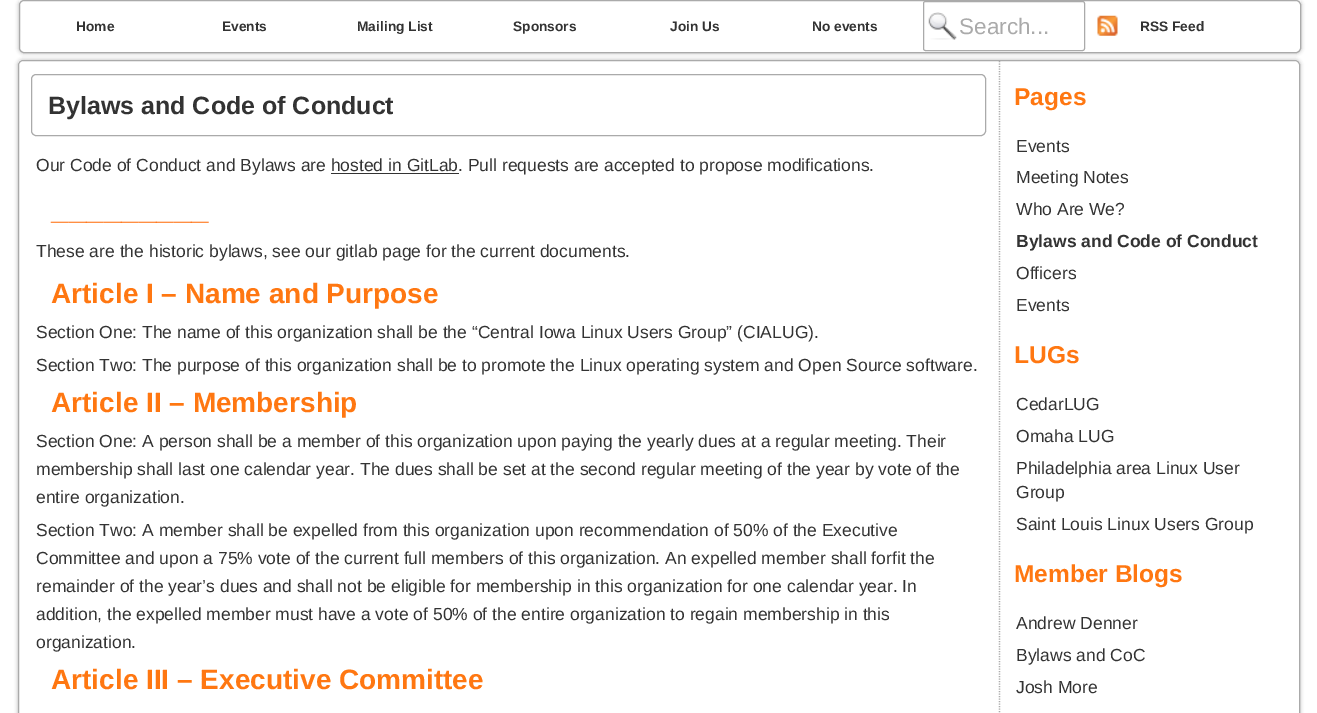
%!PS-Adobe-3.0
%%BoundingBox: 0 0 1317 713
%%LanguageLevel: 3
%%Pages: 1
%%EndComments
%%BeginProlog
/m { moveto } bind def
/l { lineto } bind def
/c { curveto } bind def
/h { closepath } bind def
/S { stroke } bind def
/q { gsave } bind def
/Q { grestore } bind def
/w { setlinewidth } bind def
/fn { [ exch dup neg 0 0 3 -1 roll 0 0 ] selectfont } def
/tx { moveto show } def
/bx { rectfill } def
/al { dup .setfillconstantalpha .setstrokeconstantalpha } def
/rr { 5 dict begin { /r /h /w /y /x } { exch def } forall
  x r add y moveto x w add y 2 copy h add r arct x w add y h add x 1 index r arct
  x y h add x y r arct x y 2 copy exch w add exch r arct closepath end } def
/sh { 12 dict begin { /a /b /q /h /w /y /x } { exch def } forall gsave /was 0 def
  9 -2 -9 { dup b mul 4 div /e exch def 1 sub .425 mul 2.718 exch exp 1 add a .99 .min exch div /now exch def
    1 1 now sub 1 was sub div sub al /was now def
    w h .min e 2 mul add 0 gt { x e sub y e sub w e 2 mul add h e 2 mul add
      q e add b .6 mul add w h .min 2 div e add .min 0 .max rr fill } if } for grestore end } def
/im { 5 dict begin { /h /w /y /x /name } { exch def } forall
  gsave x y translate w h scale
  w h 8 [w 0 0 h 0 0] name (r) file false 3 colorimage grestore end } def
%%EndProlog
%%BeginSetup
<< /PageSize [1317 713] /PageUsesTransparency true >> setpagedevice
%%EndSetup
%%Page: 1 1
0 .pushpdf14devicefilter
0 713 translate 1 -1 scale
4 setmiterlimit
1 setgray
0 0 1317 713 bx
q
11 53 m 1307 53 l 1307 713 l 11 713 l h 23 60 m 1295 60 l 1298 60 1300 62 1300 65 c 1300 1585 l 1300 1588 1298 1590 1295 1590 c 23 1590 l 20 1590 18 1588 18 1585 c 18 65 l 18 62 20 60 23 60 c h eoclip newpath
0.667 setgray
18 60 1282 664 5 2 1 sh
Q
(image2.raw) 18 59 1282 5 im
q
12 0 m 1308 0 l 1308 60 l 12 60 l h 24 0 m 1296 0 l 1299 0 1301 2 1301 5 c 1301 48 l 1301 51 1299 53 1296 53 c 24 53 l 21 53 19 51 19 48 c 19 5 l 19 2 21 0 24 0 c h eoclip newpath
0.667 setgray
19 0 1282 53 5 2 1 sh
Q
0.5 al
19 0 1282 3 bx
1 al
0.667 setgray
19.5 0.5 1281 52 4.5 rr S
/LiberationSans-Bold 13.75 fn
0.2 setgray
(Home) 76 31 tx
(Events) 222 31 tx
(Mailing List) 357 31 tx
(Sponsors) 513 31 tx
(Join Us) 670 31 tx
(No events) 812 31 tx
(image0.raw) 928 12 29 28 im
0.667 setgray
923.5 1.5 161 49 2 rr S
/LiberationSans-Regular 22.5 fn
(Search...) 959 34 tx
(image1.raw) 1097 15 21 21 im
/LiberationSans-Bold 13.75 fn
0.2 setgray
(RSS Feed) 1140 31 tx
0.667 setgray
18.5 60.5 1281 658 4.5 rr S
1.2 w
[1.25 1.25] 0 setdash
999.5 61 m 999.5 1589 l S
1 w
[] 0 setdash
31.5 74.5 954 61 4.5 rr S
/LiberationSans-Bold 25 fn
0.2 setgray
(Bylaws and Code of Conduct) 48 114 tx
/LiberationSans-Regular 17.5 fn
(Our Code of Conduct and Bylaws are hosted in GitLab. Pull requests are accepted to propose modifications.) 36 171 tx
331 173 128 1 bx
/LiberationSans-Bold 31.5 fn
1 0.4 0 setrgbcolor
(_________) 51 219 tx
/LiberationSans-Regular 17.5 fn
0.2 setgray
(These are the historic bylaws, see our gitlab page for the current documents.) 36 257 tx
/LiberationSans-Bold 28 fn
1 0.467 0.067 setrgbcolor
(Article I – Name and Purpose) 51 303 tx
/LiberationSans-Regular 17.5 fn
0.2 setgray
(Section One: The name of this organization shall be the “Central Iowa Linux Users Group” \(CIALUG\).) 36 338 tx
(Section Two: The purpose of this organization shall be to promote the Linux operating system and Open Source software.) 36 371 tx
/LiberationSans-Bold 28 fn
1 0.467 0.067 setrgbcolor
(Article II – Membership) 51 412 tx
/LiberationSans-Regular 17.5 fn
0.2 setgray
(Section One: A person shall be a member of this organization upon paying the yearly dues at a regular meeting. Their) 36 447 tx
(membership shall last one calendar year. The dues shall be set at the second regular meeting of the year by vote of the) 36 475 tx
(entire organization.) 36 503 tx
(Section Two: A member shall be expelled from this organization upon recommendation of 50% of the Executive) 36 536 tx
(Committee and upon a 75% vote of the current full members of this organization. An expelled member shall forfit the) 36 564 tx
(remainder of the year’s dues and shall not be eligible for membership in this organization for one calendar year. In) 36 592 tx
(addition, the expelled member must have a vote of 50% of the entire organization to regain membership in this) 36 620 tx
(organization.) 36 648 tx
/LiberationSans-Bold 28 fn
1 0.467 0.067 setrgbcolor
(Article III – Executive Committee) 51 689 tx
/LiberationSans-Bold 24.5 fn
(Pages) 1014 105 tx
/LiberationSans-Regular 17.5 fn
0.2 setgray
(Events) 1016 152 tx
(Meeting Notes) 1016 183 tx
(Who Are We?) 1016 215 tx
/LiberationSans-Bold 17.5 fn
(Bylaws and Code of Conduct) 1016 247 tx
/LiberationSans-Regular 17.5 fn
(Officers) 1016 279 tx
(Events) 1016 311 tx
/LiberationSans-Bold 24.5 fn
1 0.467 0.067 setrgbcolor
(LUGs) 1014 363 tx
/LiberationSans-Regular 17.5 fn
0.2 setgray
(CedarLUG) 1016 410 tx
(Omaha LUG) 1016 442 tx
(Philadelphia area Linux User) 1016 474 tx
(Group) 1016 498 tx
(Saint Louis Linux Users Group) 1016 530 tx
/LiberationSans-Bold 24.5 fn
1 0.467 0.067 setrgbcolor
(Member Blogs) 1014 582 tx
/LiberationSans-Regular 17.5 fn
0.2 setgray
(Andrew Denner) 1016 629 tx
(Bylaws and CoC) 1016 661 tx
(Josh More) 1016 693 tx
.poppdf14devicefilter showpage
%%EOF
